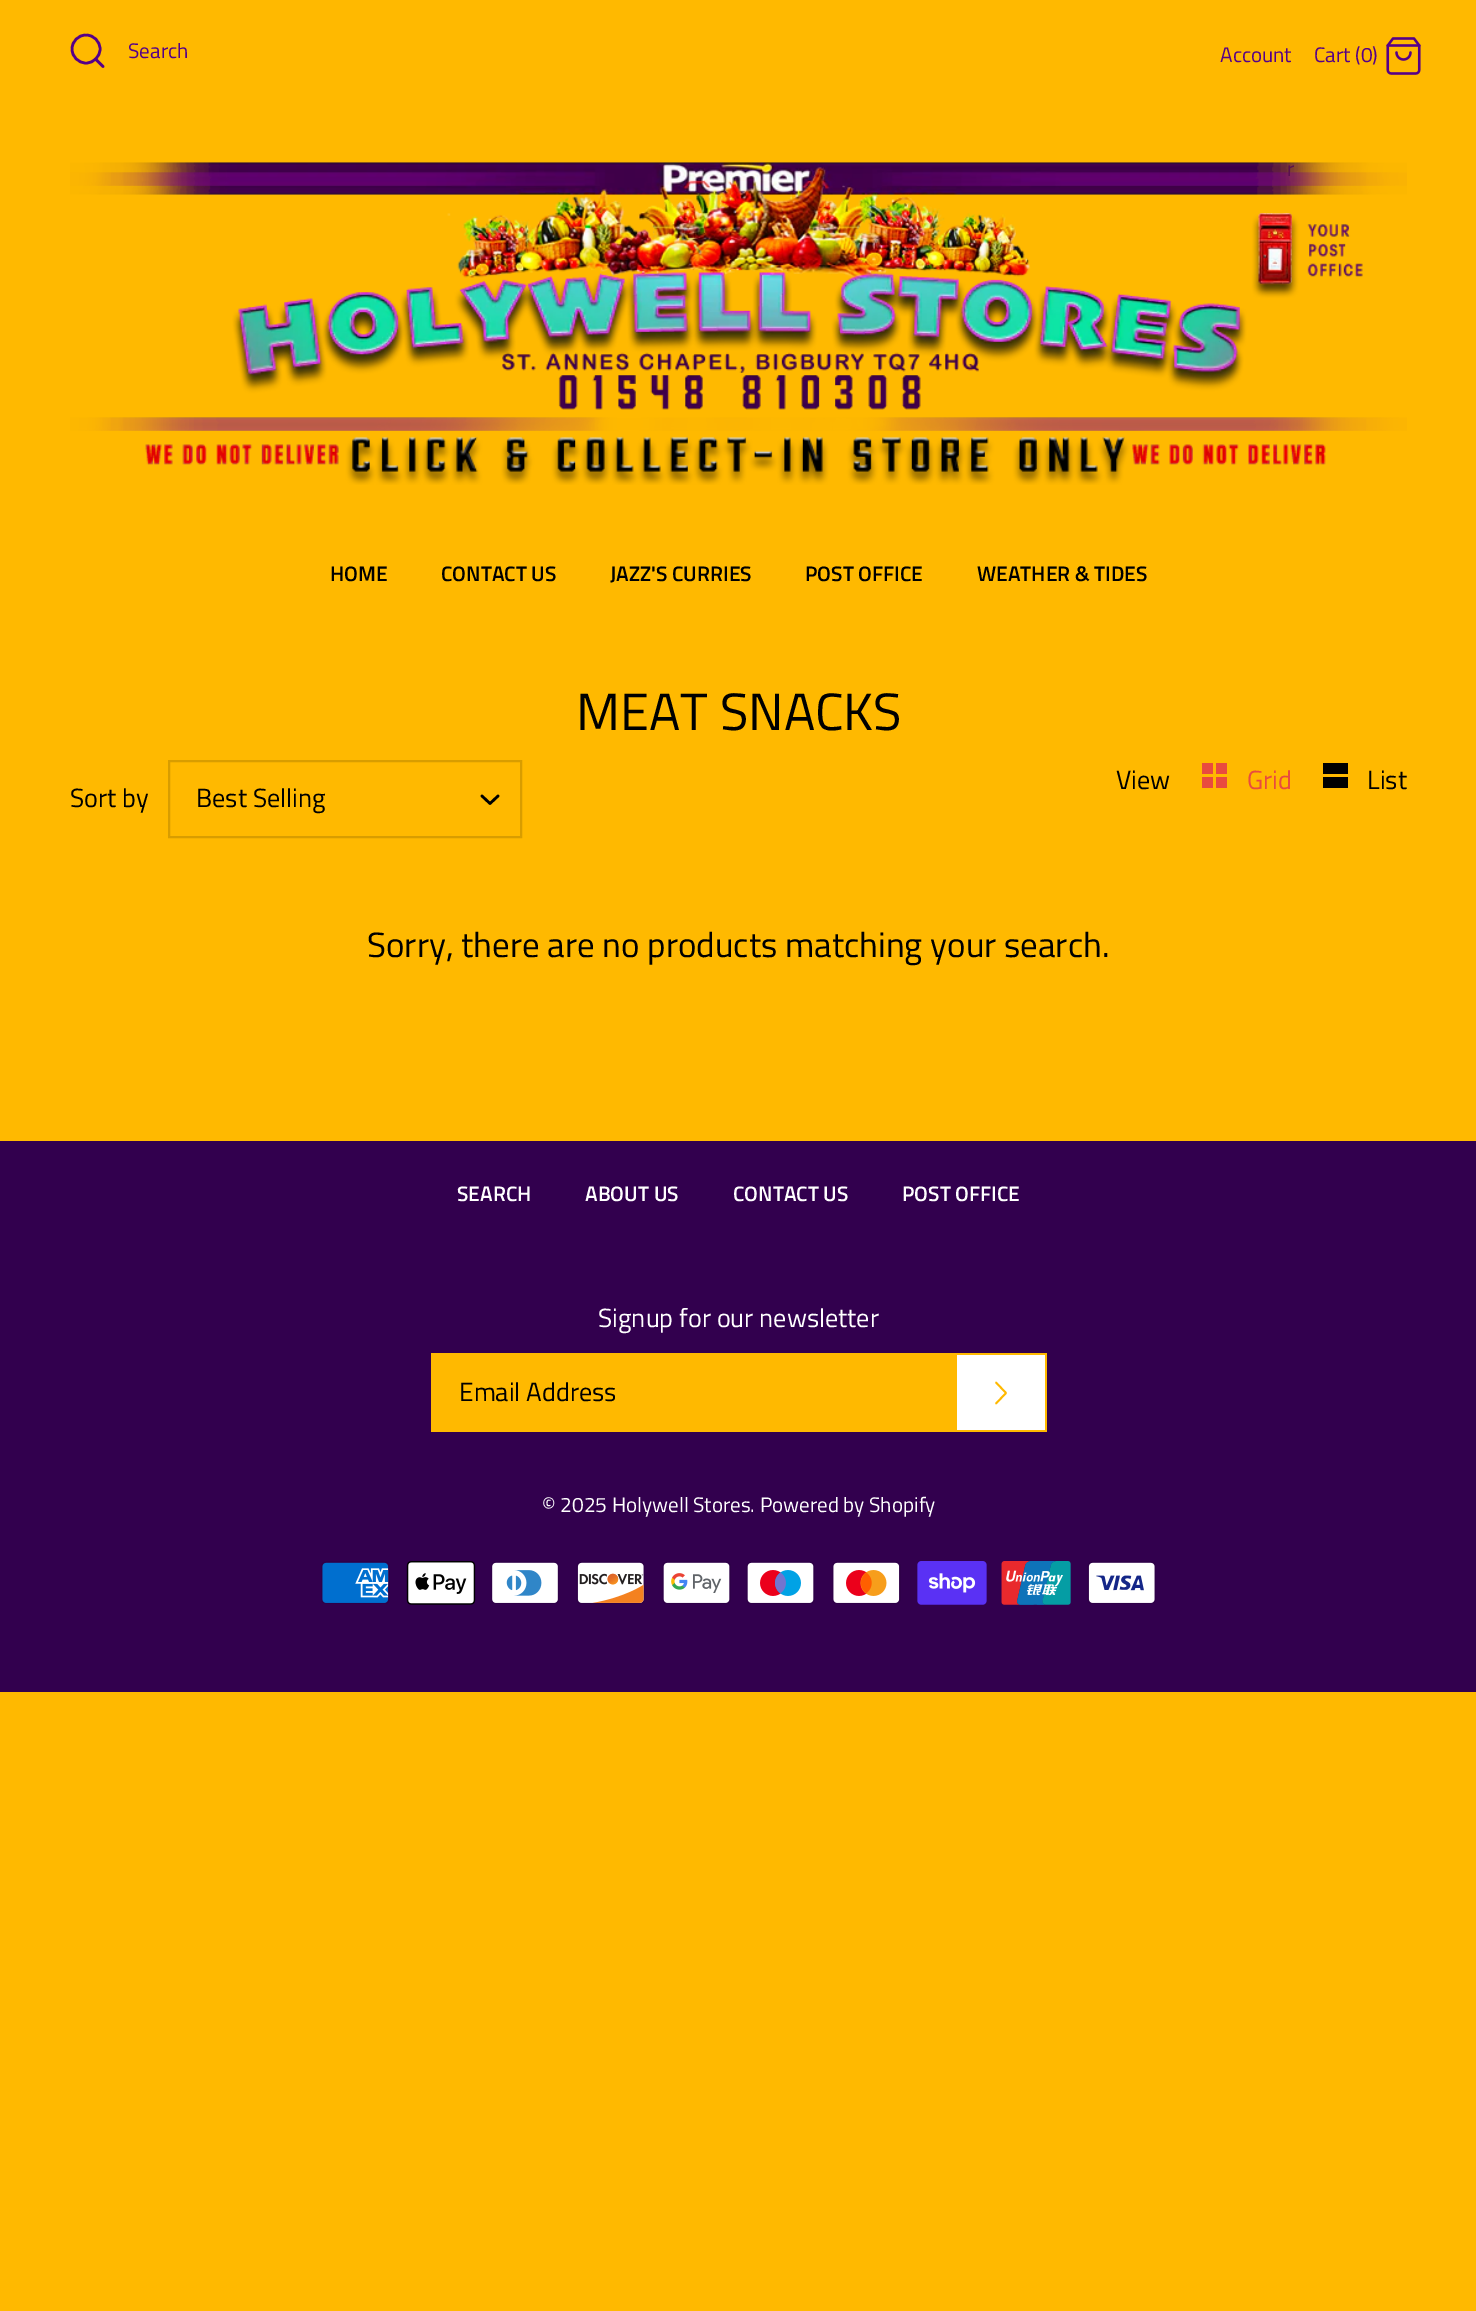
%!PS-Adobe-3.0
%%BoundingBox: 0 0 1476 2311
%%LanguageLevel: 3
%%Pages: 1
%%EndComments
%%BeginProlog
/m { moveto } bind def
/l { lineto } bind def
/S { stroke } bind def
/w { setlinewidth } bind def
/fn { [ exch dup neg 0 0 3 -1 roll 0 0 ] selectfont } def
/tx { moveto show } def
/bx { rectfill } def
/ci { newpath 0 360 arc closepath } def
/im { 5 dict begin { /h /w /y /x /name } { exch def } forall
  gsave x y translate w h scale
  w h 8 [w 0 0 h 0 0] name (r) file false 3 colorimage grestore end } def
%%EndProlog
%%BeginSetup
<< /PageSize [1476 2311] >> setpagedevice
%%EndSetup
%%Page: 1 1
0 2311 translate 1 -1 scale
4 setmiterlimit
1 0.725 0 setrgbcolor
0 0 1476 2311 bx
0.337 0 0.533 setrgbcolor
2.6 w
86 49 14 ci S
1 setlinecap
1 setlinejoin
103 66.5 m 95.5 59 l S
/TitilliumWeb-Regular 21 fn
(Search) 128 58 tx
(Account) 1220 62 tx
(image1.raw) 70 162 1337 323 im
0.353 0.067 0.306 setrgbcolor
(r) 1287 176 tx
0.337 0 0.533 setrgbcolor
(Cart \(0\)) 1314 62 tx
(image0.raw) 1386 37 35 38 im
/TitilliumWeb-SemiBold 21 fn
0 setgray
(HOME) 330 581 tx
(CONTACT US) 441 581 tx
(JAZZ'S CURRIES) 610 581 tx
(POST OFFICE) 805 581 tx
(WEATHER & TIDES) 977 581 tx
/TitilliumWeb-Regular 52.5 fn
(MEAT SNACKS) 576 730 tx
/TitilliumWeb-Regular 26.25 fn
(View) 1116 789 tx
0.914 0.294 0.247 setrgbcolor
1202 763 11 11 bx
1216 763 11 11 bx
1202 777 11 11 bx
1216 777 11 11 bx
(Grid) 1247 789 tx
0 setgray
1323 763 25 11 bx
1323 777 25 11 bx
(List) 1367 789 tx
(Sort by) 70 807 tx
0.847 0.616 0 setrgbcolor
2 w
0 setlinecap
0 setlinejoin
169 761 352 76 rectstroke
0 setgray
(Best Selling) 196 807 tx
2.6 w
1 setlinecap
1 setlinejoin
482 796 m 490 803.5 l 498 796 l S
/TitilliumWeb-Regular 35 fn
(Sorry, there are no products matching your search.) 367 957 tx
0.196 0 0.306 setrgbcolor
0 1141 1476 551 bx
/TitilliumWeb-SemiBold 21 fn
1 setgray
(SEARCH) 457 1201 tx
(ABOUT US) 585 1201 tx
(CONTACT US) 733 1201 tx
(POST OFFICE) 902 1201 tx
/TitilliumWeb-Regular 26.25 fn
(Signup for our newsletter) 598 1327 tx
1 0.725 0 setrgbcolor
431 1353 616 79 bx
0 setgray
(Email Address) 459 1401 tx
1 setgray
957 1355 88 75 bx
1 0.725 0 setrgbcolor
1.8 w
996 1403.5 m 1006 1393 l 996 1382.5 l S
/TitilliumWeb-Regular 21 fn
1 setgray
(© 2025 Holywell Stores. Powered by Shopify) 542 1512 tx
(image2.raw) 321 1561 69 43 im
(image3.raw) 406 1561 70 44 im
(image4.raw) 491 1561 68 43 im
(image5.raw) 576 1561 69 43 im
(image6.raw) 662 1561 69 43 im
(image7.raw) 746 1561 69 43 im
(image8.raw) 832 1561 69 43 im
(image9.raw) 917 1561 70 44 im
(image10.raw) 1001 1561 70 44 im
(image11.raw) 1087 1561 69 43 im
showpage
%%EOF
